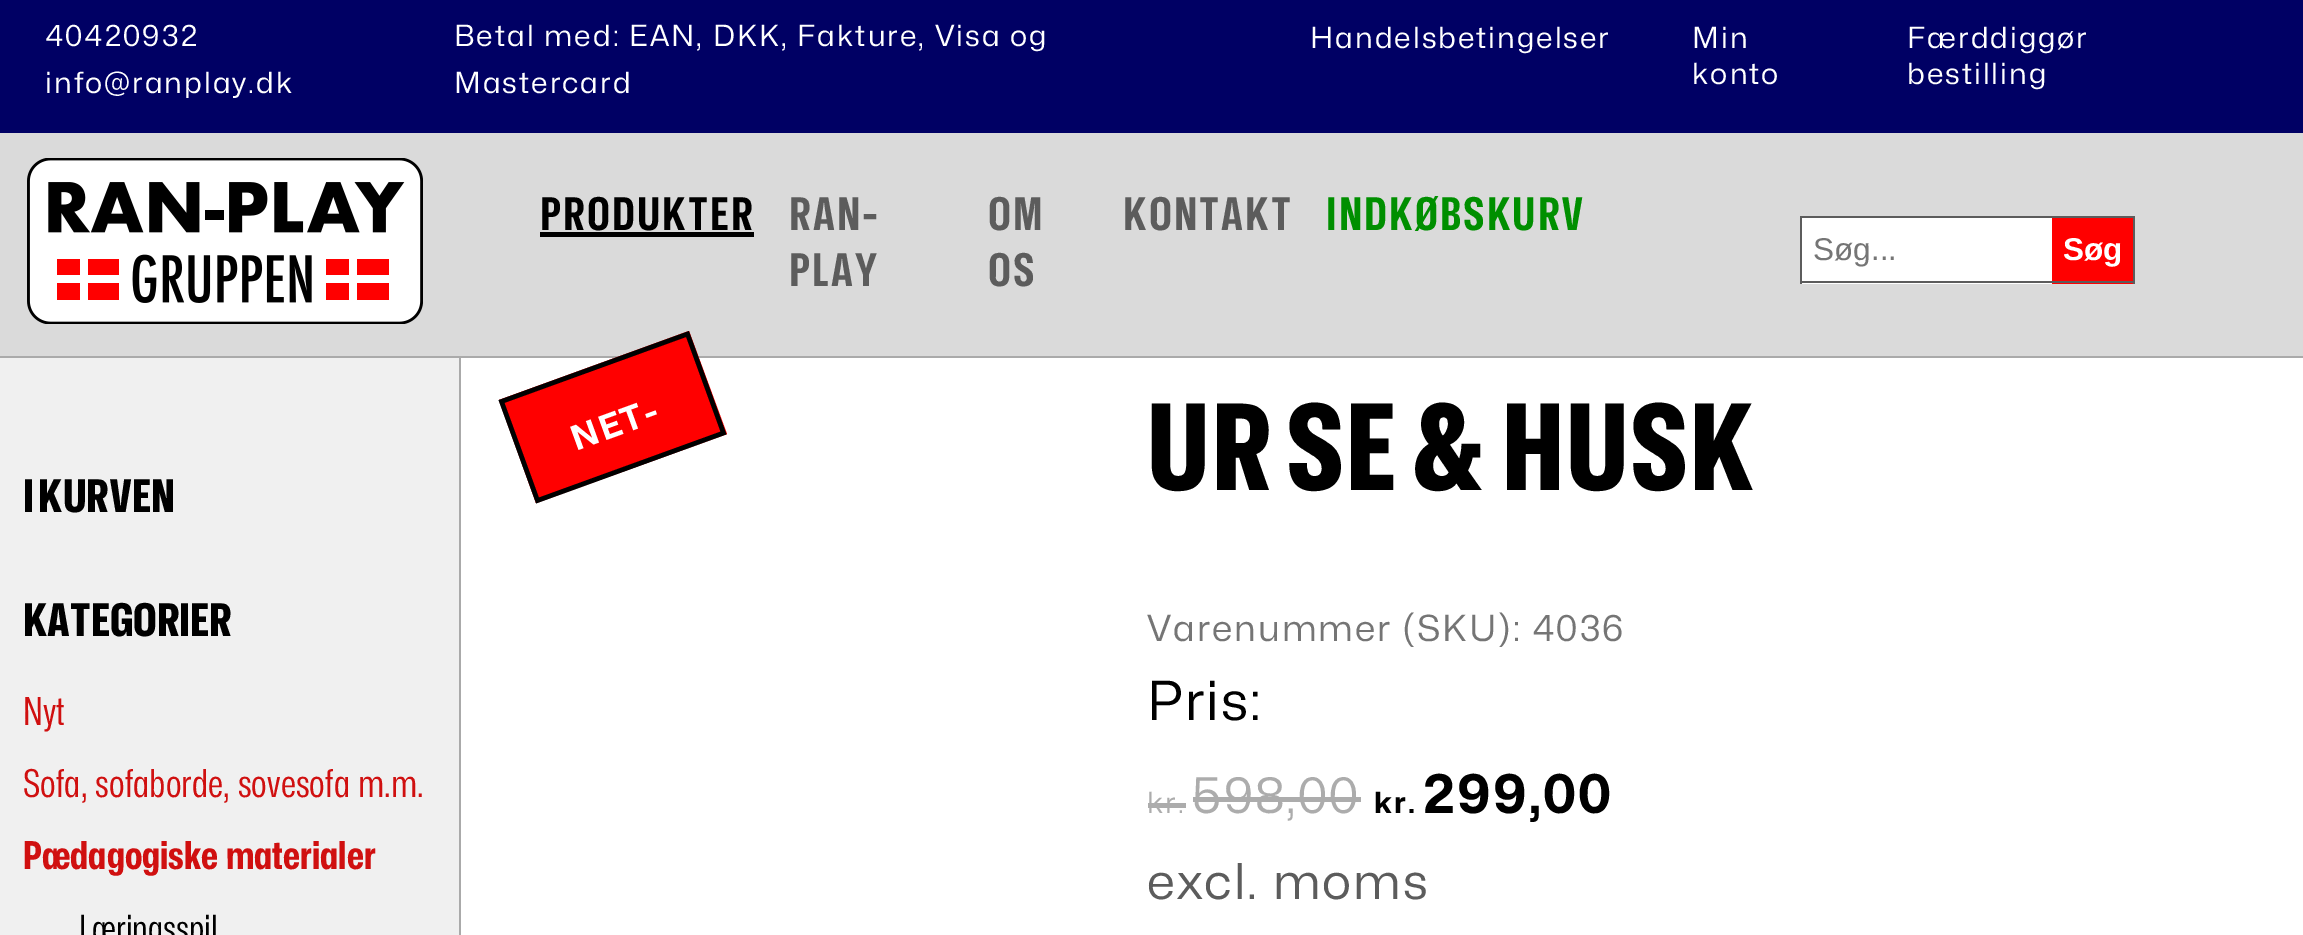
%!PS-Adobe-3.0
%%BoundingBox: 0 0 2303 935
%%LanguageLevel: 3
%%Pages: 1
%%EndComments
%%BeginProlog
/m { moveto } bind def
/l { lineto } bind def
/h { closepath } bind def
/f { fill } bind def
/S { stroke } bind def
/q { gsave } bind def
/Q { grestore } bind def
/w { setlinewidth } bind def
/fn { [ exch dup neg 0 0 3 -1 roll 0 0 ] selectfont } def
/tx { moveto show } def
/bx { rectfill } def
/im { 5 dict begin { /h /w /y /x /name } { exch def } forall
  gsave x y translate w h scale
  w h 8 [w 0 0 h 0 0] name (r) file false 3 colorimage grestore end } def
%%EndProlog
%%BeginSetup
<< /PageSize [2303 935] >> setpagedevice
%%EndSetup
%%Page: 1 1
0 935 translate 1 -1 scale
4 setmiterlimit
1 setgray
0 0 2303 935 bx
0 0 0.392 setrgbcolor
0 0 2303 133 bx
/MonaSans-Regular 29.25 fn
1 setgray
45 46 m 2 0 (40420932) ashow
45 93 m 2 0 (info@ranplay.dk) ashow
454 46 m 2 0 (Betal med: EAN, DKK, Fakture, Visa og) ashow
454 93 m 2 0 (Mastercard) ashow
1310 48 m 2 0 (Handelsbetingelser) ashow
1692 48 m 2 0 (Min) ashow
1692 84 m 2 0 (konto) ashow
1907 48 m 2 0 (Færddiggør) ashow
1907 84 m 2 0 (bestilling) ashow
0.855 setgray
0 133 2303 223 bx
0.667 setgray
0 356 2303 2 bx
(image0.raw) 27 158 396 166 im
/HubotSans-Bold 45 fn
0 setgray
540 230 m 2 0 (PRODUKTER) ashow
540 232 214 5 bx
0.361 setgray
789 230 m 2 0 (RAN-) ashow
789 286 m 2 0 (PLAY) ashow
988 230 m 2 0 (OM) ashow
988 286 m 2 0 (OS) ashow
1123 230 m 2 0 (KONTAKT) ashow
0 0.561 0 setrgbcolor
1326 230 m 2 0 (INDKØBSKURV) ashow
1 setgray
1802 218 250 66 bx
0.361 setgray
1800 216 335 2 bx
1800 281 252 2 bx
1800 216 2 68 bx
/LiberationSans-Regular 31.5 fn
0.459 setgray
(Søg...) 1813 260 tx
1 0 0 setrgbcolor
2052 218 81 66 bx
0.361 setgray
2133 216 2 68 bx
2052 281 83 2 bx
/LiberationSans-Bold 31.5 fn
1 setgray
(Søg) 2063 260 tx
0.941 setgray
0 358 459 577 bx
0.667 setgray
459 358 2 577 bx
/HubotSans-ExtraBold 45 fn
0 setgray
(I KURVEN) 23 512 tx
(KATEGORIER) 23 636 tx
/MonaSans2-Regular 38.25 fn
0.816 0.063 0.063 setrgbcolor
(Nyt) 23 725 tx
(Sofa, sofaborde, sovesofa m.m.) 23 797 tx
/MonaSans-Bold 38.25 fn
(Pædagogiske materialer) 23 869 tx
/MonaSans2-Regular 36 fn
0 setgray
(Læringsspil) 79 941 tx
1 0 0 setrgbcolor
499 400 m 689 331 l 727 434 l 536 503 l h f
0 setgray
4.5 w
501.5 401.5 m 687.5 334 l 723.5 433 l 537.5 500.5 l h S
/MonaSans2-Bold 34 fn
1 setgray
q 576 451 translate -20 rotate 0 0 m 2 0 (NET-) ashow Q
/HubotSans-ExtraBold 118.75 fn
0 setgray
1147 490 m 2 0 (UR SE & HUSK) ashow
/MonaSans-Regular 36 fn
0.459 setgray
1147 641 m 2 0 (Varenummer \(SKU\): 4036) ashow
/MonaSans-Regular 54 fn
0 setgray
1147 720 m 2 0 (Pris:) ashow
/MonaSans-Regular 29.25 fn
0.675 setgray
1147 813 m 2 0 (kr.) ashow
1148 803 38 5 bx
/MonaSans-Regular 49.5 fn
1192 813 m 2 0 (598,00) ashow
1193 797 168 5 bx
/MonaSans2-Bold 29.25 fn
0 setgray
1374 813 m 2 0 (kr.) ashow
/MonaSans2-Bold 54 fn
1423 813 m 2 0 (299,00) ashow
/MonaSans-Regular 49.5 fn
0.361 setgray
1147 899 m 2 0 (excl. moms) ashow
showpage
%%EOF
